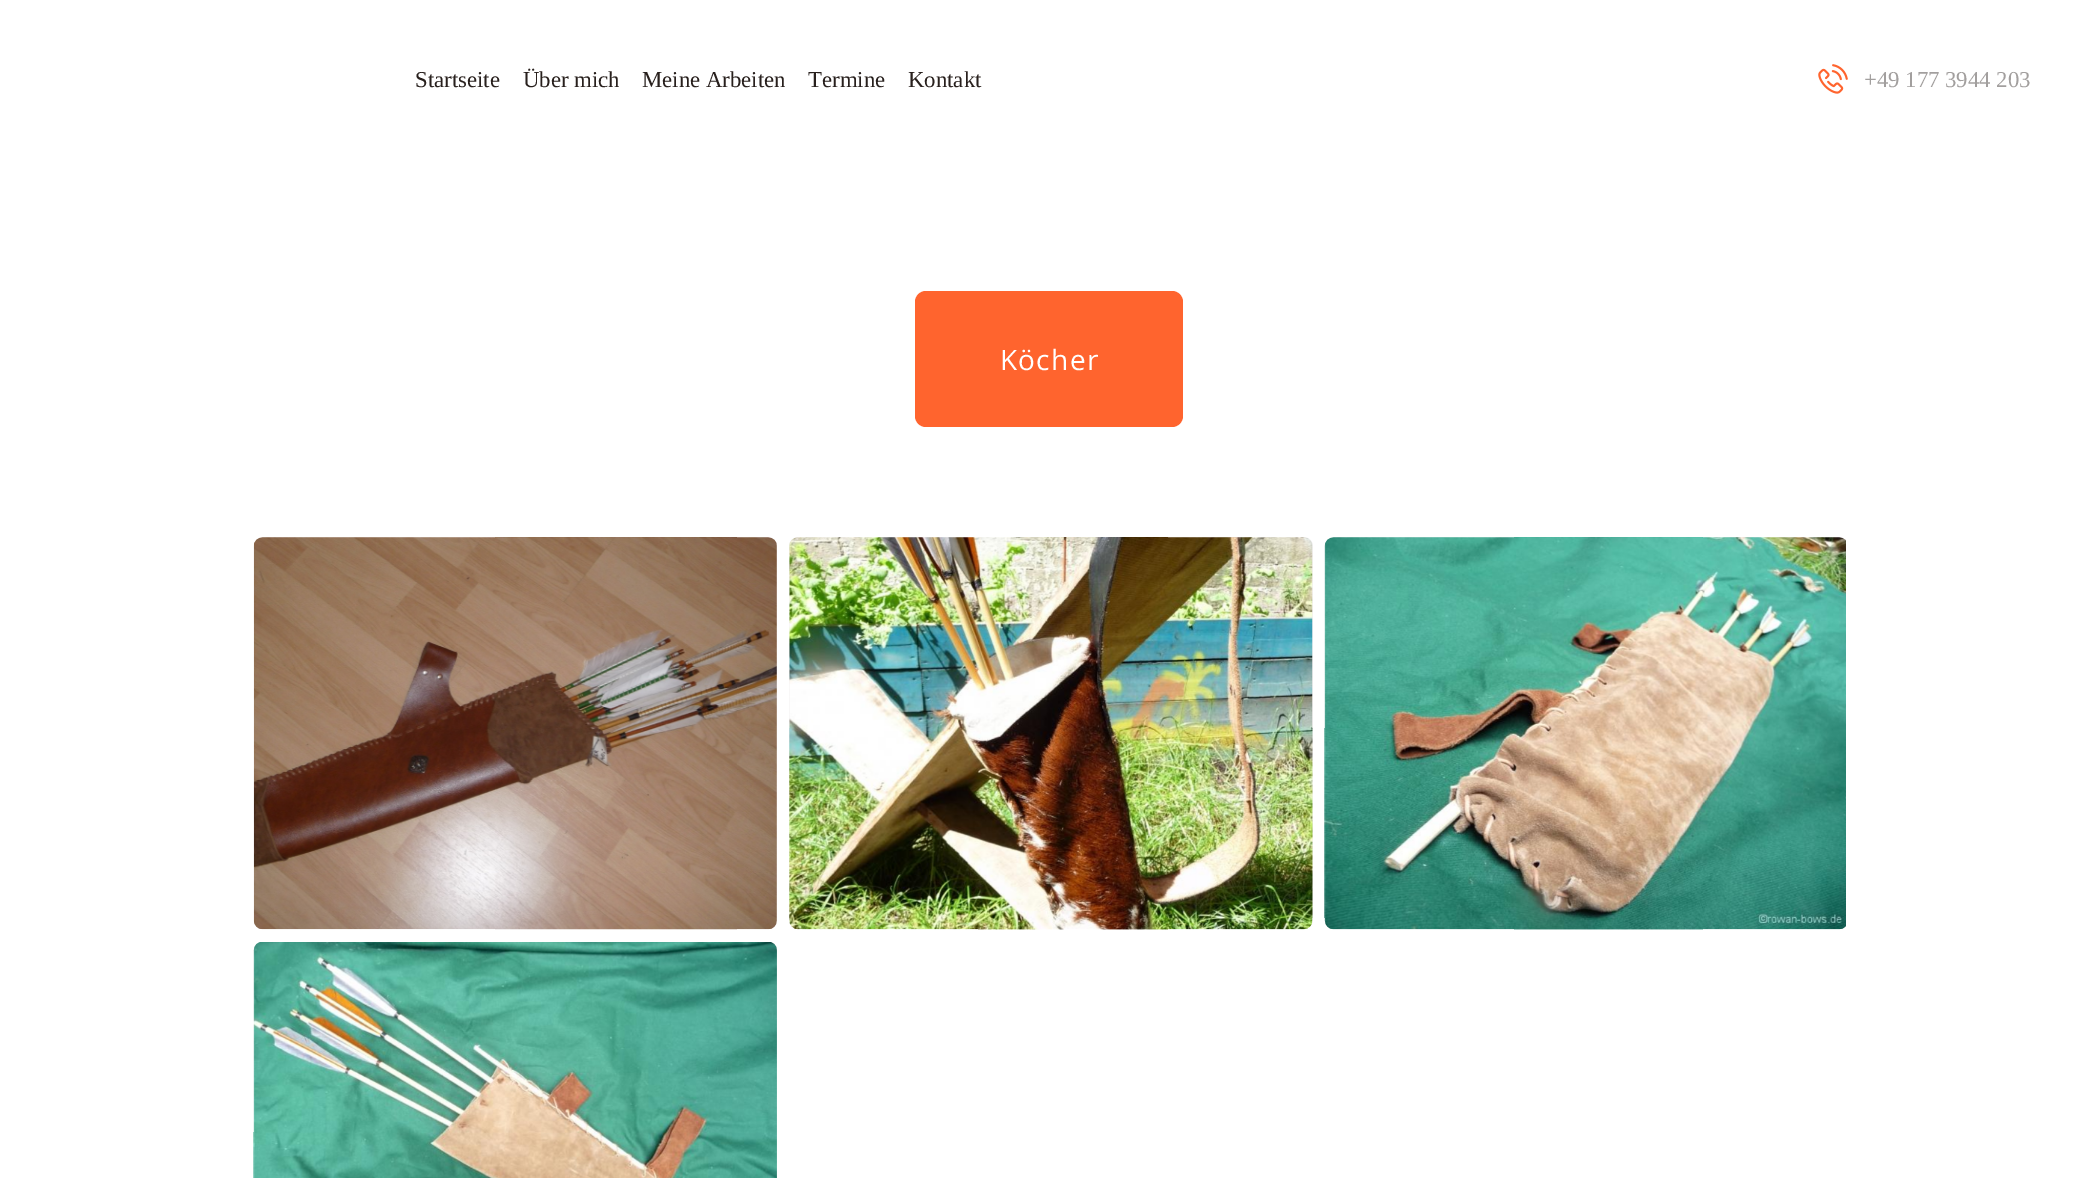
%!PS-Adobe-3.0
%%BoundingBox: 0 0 2097 1178
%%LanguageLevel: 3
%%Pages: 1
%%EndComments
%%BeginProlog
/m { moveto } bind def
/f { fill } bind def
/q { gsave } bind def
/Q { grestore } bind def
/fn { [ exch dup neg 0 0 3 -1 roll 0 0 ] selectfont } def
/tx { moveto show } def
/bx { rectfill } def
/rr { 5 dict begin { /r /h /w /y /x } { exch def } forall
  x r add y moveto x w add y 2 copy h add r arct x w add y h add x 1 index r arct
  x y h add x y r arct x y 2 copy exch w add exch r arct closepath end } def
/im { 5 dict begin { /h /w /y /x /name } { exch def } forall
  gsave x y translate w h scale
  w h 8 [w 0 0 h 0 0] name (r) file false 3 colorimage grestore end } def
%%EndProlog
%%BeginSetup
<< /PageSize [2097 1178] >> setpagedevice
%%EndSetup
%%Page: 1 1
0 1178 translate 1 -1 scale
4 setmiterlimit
1 setgray
0 0 2097 1178 bx
/LiberationSerif-Regular 22.75 fn
0.157 0.125 0.114 setrgbcolor
(Startseite) 415 87 tx
(Über mich) 523 87 tx
(Meine Arbeiten) 642 87 tx
(Termine) 808 87 tx
(Kontakt) 908 87 tx
(image0.raw) 1818 64 30 30 im
0.635 0.624 0.62 setrgbcolor
(+49 177 3944 203) 1864 87 tx
1 0.392 0.18 setrgbcolor
915 291 268 136 11 rr f
/OpenSans-Regular 28 fn
1 setgray
1000 370 m 1.25 0 (Köcher) ashow
0.953 0.941 0.945 setrgbcolor
254 537 523 392 9 rr f
(image1.raw) 253 537 524 393 im
789 537 524 392 9 rr f
(image2.raw) 789 537 524 393 im
q
254 537 1592 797 rectclip
1325 537 523 392 9 rr f
Q
(image3.raw) 1324 537 522 393 im
(image4.raw) 253 942 524 236 im
showpage
%%EOF
